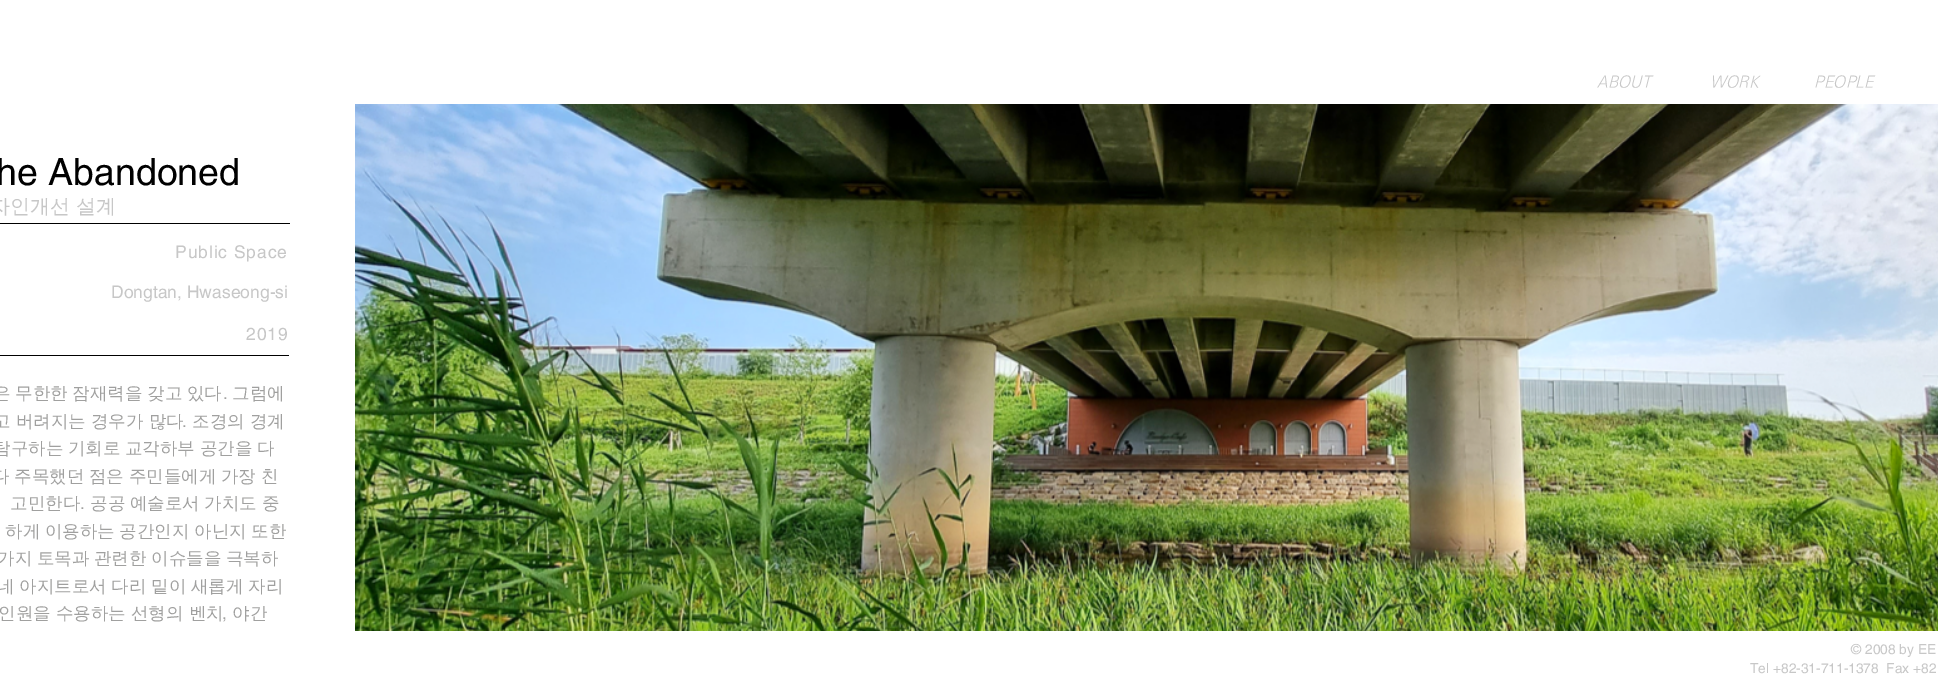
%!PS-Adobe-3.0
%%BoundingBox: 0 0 1938 682
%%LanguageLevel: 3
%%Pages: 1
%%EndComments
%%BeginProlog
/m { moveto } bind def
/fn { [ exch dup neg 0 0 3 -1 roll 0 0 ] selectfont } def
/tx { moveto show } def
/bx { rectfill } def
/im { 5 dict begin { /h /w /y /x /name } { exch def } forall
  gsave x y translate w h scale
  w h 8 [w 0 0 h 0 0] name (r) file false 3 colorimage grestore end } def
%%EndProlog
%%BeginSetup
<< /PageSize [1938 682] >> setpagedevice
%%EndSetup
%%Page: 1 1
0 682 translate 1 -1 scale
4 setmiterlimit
1 setgray
0 0 1938 682 bx
/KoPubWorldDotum-LightItalic 16 fn
0.78 setgray
(ABOUT) 1597 87 tx
(WORK) 1710 87 tx
(PEOPLE) 1814 87 tx
/helvetica-Regular 37.5 fn
0 setgray
(he Abandoned) -4 185 tx
(image0.raw) 355 104 1583 527 im
/WenQuanYiZenHei-Medium 20 fn
0.78 setgray
(자인개선 설계) -10 213 tx
0 setgray
0 223 290 1 bx
/helvetica-Regular 17.5 fn
0.78 setgray
175 258 m 0.9 0 (Public Space) ashow
(Dongtan, Hwaseong-si) 111 298 tx
246 340 m 0.9 0 (2019) ashow
0 setgray
0 355 289 1 bx
/WenQuanYiZenHei-Medium 17.5 fn
0.627 0.627 0.624 setrgbcolor
-7 399 m -0.5 0 32 (은 무한한 잠재력을 갖고 있다) widthshow
/helvetica-Regular 17.5 fn
(.) 223 399 tx
/WenQuanYiZenHei-Medium 17.5 fn
(그럼에) 232 399 tx
(고 버려지는 경우가 많다) -7 427 tx
/helvetica-Regular 17.5 fn
(.) 182 427 tx
/WenQuanYiZenHei-Medium 17.5 fn
(조경의 경계) 192 427 tx
-7 454 m -0.5 0 32 (탐구하는 기회로 교각하부 공간을 다) widthshow
-8 482 m -0.5 0 32 (다 주목했던 점은 주민들에게 가장 친) widthshow
10 509 m -0.5 0 32 (고민한다) widthshow
/helvetica-Regular 17.5 fn
(.) 80 509 tx
/WenQuanYiZenHei-Medium 17.5 fn
90 509 m -0.5 0 32 (공공 예술로서 가치도 중) widthshow
5 537 m -0.5 0 32 (하게 이용하는 공간인지 아닌지 또한) widthshow
-3 564 m -0.5 0 32 (가지 토목과 관련한 이슈들을 극복하) widthshow
-3 592 m -0.5 0 32 (네 아지트로서 다리 밑이 새롭게 자리) widthshow
(인원을 수용하는 선형의 벤치) -2 619 tx
/helvetica-Regular 17.5 fn
(,) 222 619 tx
/WenQuanYiZenHei-Medium 17.5 fn
(야간) 232 619 tx
/helvetica-Regular 13.75 fn
0.78 setgray
(© 2008 by EE) 1851 654 tx
(Tel +82-31-711-1378  Fax +82) 1750 673 tx
showpage
%%EOF
